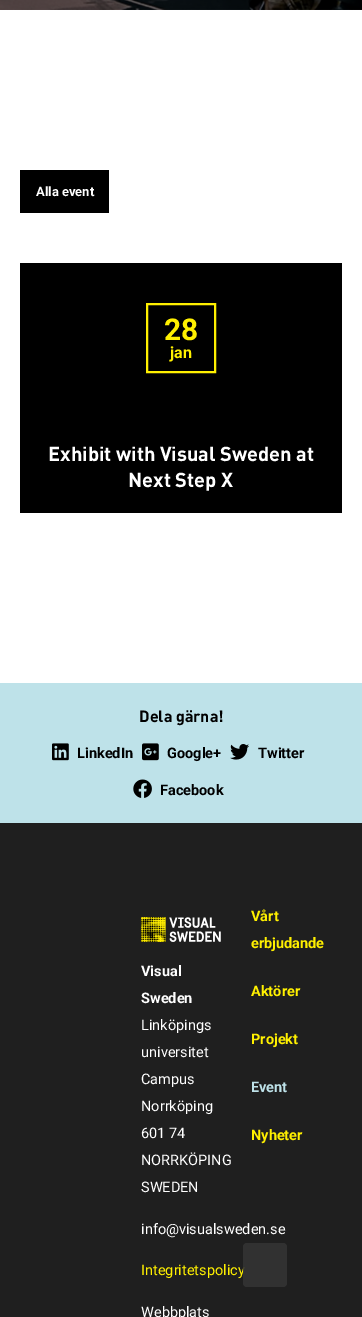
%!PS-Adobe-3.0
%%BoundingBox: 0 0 362 1317
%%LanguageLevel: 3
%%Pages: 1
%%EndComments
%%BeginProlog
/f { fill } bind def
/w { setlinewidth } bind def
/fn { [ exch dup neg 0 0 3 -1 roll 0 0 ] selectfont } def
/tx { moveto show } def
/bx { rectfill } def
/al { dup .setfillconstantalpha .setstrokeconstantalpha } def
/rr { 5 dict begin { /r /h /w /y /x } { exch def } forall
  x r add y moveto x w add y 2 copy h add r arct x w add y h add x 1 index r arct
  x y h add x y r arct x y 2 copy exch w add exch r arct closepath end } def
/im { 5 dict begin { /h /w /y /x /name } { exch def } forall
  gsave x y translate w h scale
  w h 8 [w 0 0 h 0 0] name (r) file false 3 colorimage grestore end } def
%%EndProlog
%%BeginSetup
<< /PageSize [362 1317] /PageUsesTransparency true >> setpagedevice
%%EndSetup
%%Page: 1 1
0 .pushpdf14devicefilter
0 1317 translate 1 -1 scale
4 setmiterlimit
1 setgray
0 0 362 1317 bx
0 setgray
0 0 362 10 bx
(image0.raw) 0 0 362 10 im
20 170 89 43 bx
/Roboto-Bold 13 fn
1 setgray
(Alla event) 36 196 tx
0 setgray
20 263 322 250 bx
1 0.941 0 setrgbcolor
2 w
147 304 68 68 rectstroke
/Roboto-Bold 30 fn
(28) 164 340 tx
/Roboto-Bold 16 fn
(jan) 170 358 tx
/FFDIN-Bold 20 fn
1 setgray
(Exhibit with Visual Sweden at) 48 461 tx
(Next Step X) 128 487 tx
0.745 0.886 0.914 setrgbcolor
0 683 362 140 bx
/FFDIN-Bold 16 fn
0 setgray
(Dela gärna!) 139 722 tx
(image1.raw) 52 743 17 18 im
/Roboto-Bold 14.5 fn
(LinkedIn) 77 758 tx
(image2.raw) 142 743 17 18 im
(Google+) 167 758 tx
(image3.raw) 230 744 19 16 im
(Twitter) 258 758 tx
(image4.raw) 133 779 19 19 im
(Facebook) 160 795 tx
0.122 setgray
0 823 362 494 bx
(image5.raw) 141 917 80 25 im
1 setgray
(Visual) 141 976 tx
(Sweden) 141 1003 tx
/Roboto-Regular 14.5 fn
(Linköpings) 141 1030 tx
(universitet) 141 1057 tx
(Campus) 141 1084 tx
(Norrköping) 141 1111 tx
(601 74) 141 1138 tx
(NORRKÖPING) 141 1165 tx
(SWEDEN) 141 1192 tx
(info@visualsweden.se) 141 1234 tx
1 0.941 0 setrgbcolor
(Integritetspolicy) 141 1275 tx
1 setgray
(Webbplats) 141 1317 tx
/Roboto-Bold 14.5 fn
1 0.941 0 setrgbcolor
(Vårt) 251 921 tx
(erbjudande) 251 948 tx
(Aktörer) 251 996 tx
(Projekt) 251 1044 tx
0.745 0.886 0.914 setrgbcolor
(Event) 251 1092 tx
1 0.941 0 setrgbcolor
(Nyheter) 251 1140 tx
0.9 al
0.2 setgray
243 1243 44 44 4 rr f
.poppdf14devicefilter showpage
%%EOF
